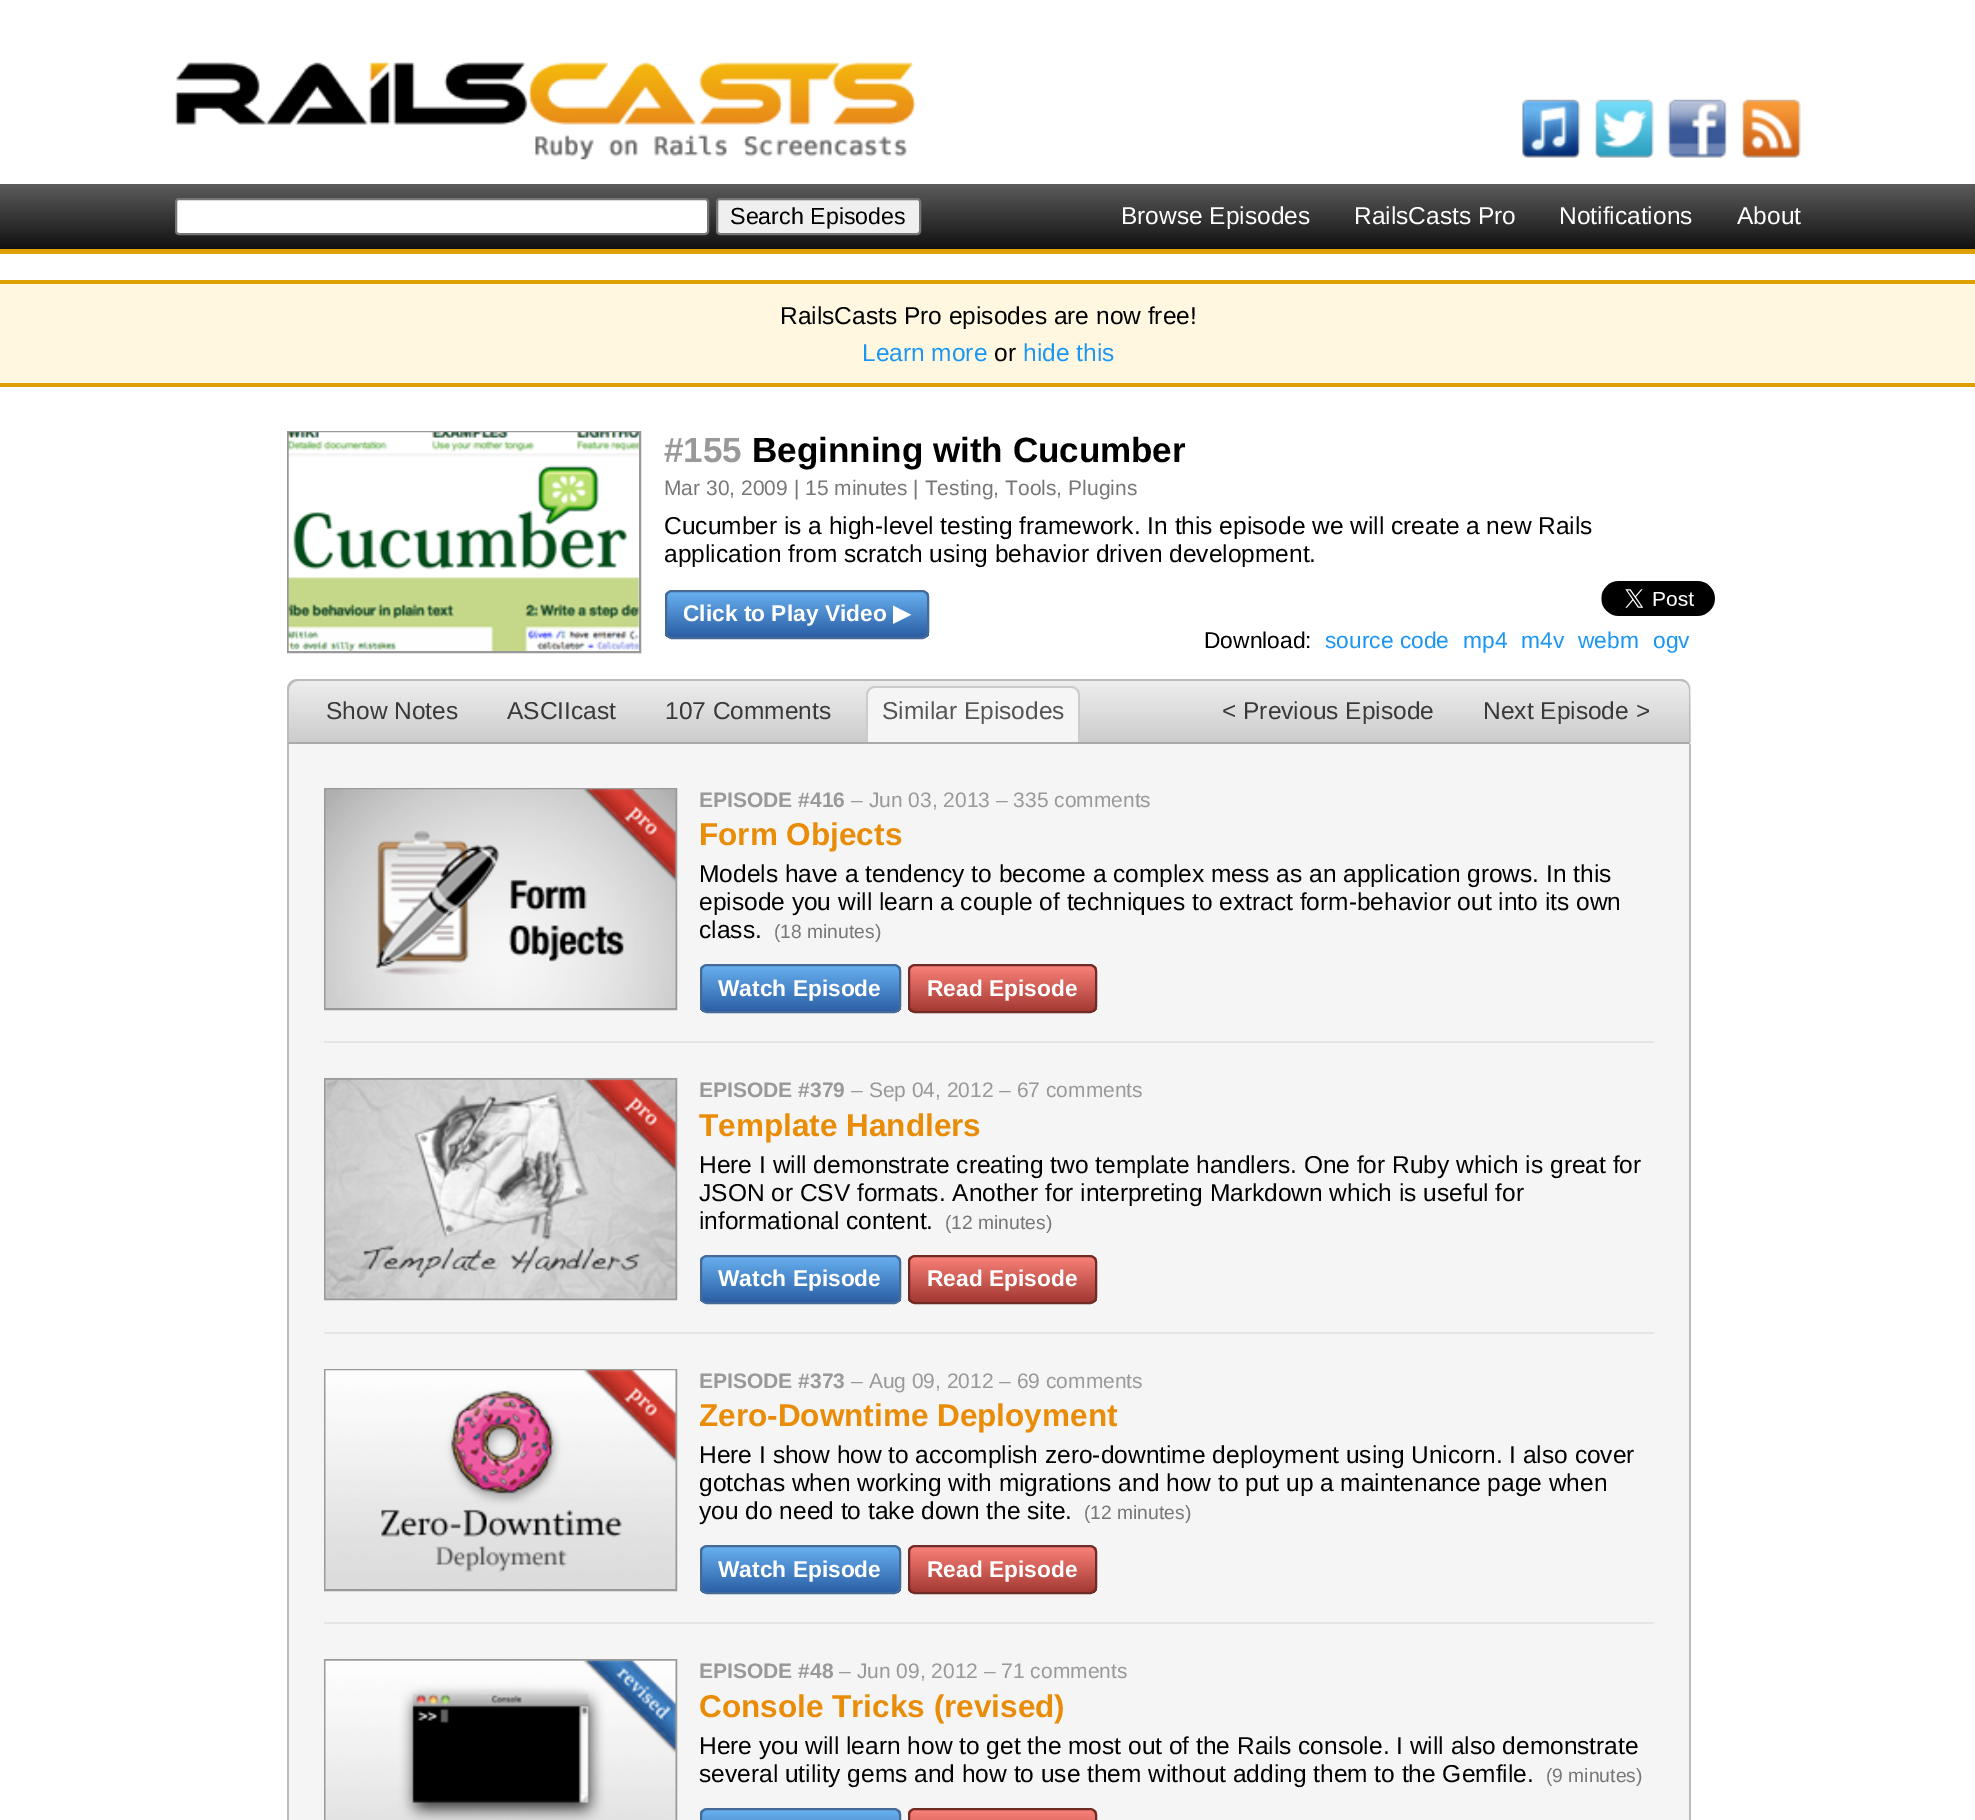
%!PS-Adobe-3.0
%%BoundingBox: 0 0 1975 1820
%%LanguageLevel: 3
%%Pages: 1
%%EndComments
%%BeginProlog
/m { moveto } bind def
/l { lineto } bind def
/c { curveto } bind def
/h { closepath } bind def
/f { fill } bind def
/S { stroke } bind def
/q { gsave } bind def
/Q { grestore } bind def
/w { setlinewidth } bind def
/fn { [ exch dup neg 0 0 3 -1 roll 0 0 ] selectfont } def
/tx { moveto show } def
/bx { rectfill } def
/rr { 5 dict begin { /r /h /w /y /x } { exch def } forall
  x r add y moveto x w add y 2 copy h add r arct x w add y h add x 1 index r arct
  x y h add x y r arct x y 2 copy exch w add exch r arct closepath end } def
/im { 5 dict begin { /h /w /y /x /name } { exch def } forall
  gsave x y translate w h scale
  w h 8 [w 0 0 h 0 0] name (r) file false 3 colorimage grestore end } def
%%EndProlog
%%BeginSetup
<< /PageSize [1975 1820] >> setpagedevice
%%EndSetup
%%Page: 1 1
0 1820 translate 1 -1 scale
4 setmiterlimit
1 setgray
0 0 1975 1820 bx
(image0.raw) 175 61 741 99 im
(image1.raw) 1522 99 59 59 im
(image2.raw) 1595 99 59 59 im
(image3.raw) 1667 99 60 59 im
(image4.raw) 1742 99 59 59 im
q 0 184 m 1975 184 l 1975 249 l 0 249 l h clip newpath
<< /ShadingType 2 /ColorSpace /DeviceRGB /Coords [0 184 0 249] /Extend [true true] /Function << /FunctionType 2 /Domain [0 1] /C0 [0.361 0.361 0.361] /C1 [0.067 0.067 0.067] /N 1 >> >> shfill Q
0.871 0.624 0 setrgbcolor
0 249 1975 5 bx
1 setgray
176 199 532 35 3 rr q f Q
0.463 setgray
2 w
S
0.937 setgray
717 199 203 35 3 rr q f Q
0.463 setgray
S
/LiberationSans-Regular 23.25 fn
0 setgray
(Search Episodes) 730 224 tx
/LiberationSans-Regular 24.5 fn
1 setgray
(Browse Episodes) 1121 224 tx
(RailsCasts Pro) 1354 224 tx
(Notifications) 1559 224 tx
(About) 1737 224 tx
1 0.969 0.878 setrgbcolor
0 284 1975 99 bx
0.871 0.624 0 setrgbcolor
0 280 1975 4 bx
0 383 1975 4 bx
0 setgray
(RailsCasts Pro episodes are now free!) 780 324 tx
0.106 0.592 0.949 setrgbcolor
(Learn more) 862 361 tx
0 setgray
(or) 994 361 tx
0.106 0.592 0.949 setrgbcolor
(hide this) 1023 361 tx
0.6 setgray
288 432 352 220 rectstroke
(image5.raw) 288 432 351 219 im
/LiberationSans-Bold 35 fn
(#155) 664 462 tx
0 setgray
(Beginning with Cucumber) 752 462 tx
/LiberationSans-Regular 21 fn
0.467 setgray
(Mar 30, 2009 | 15 minutes | Testing, Tools, Plugins) 664 495 tx
/LiberationSans-Regular 24.5 fn
0 setgray
(Cucumber is a high-level testing framework. In this episode we will create a new Rails) 664 534 tx
(application from scratch using behavior driven development.) 664 562 tx
q
665 590 264 49 7 rr clip newpath
q 665 592 m 929 592 l 929 637 l 665 637 l h clip newpath
<< /ShadingType 2 /ColorSpace /DeviceRGB /Coords [667 592 667 637] /Extend [true true] /Function << /FunctionType 2 /Domain [0 1] /C0 [0.404 0.69 0.937] /C1 [0.169 0.369 0.643] /N 1 >> >> shfill Q
Q
0.275 0.416 0.596 setrgbcolor
666 591 262 47 6 rr S
/LiberationSans-Bold 22.75 fn
1 setgray
(Click to Play Video) 683 621 tx
/DejaVuSans-Bold 22.75 fn
(▶) 893 621 tx
(image6.raw) 1601 581 114 35 im
/LiberationSans-Regular 22.75 fn
0 setgray
(Download:) 1204 648 tx
0.106 0.592 0.949 setrgbcolor
(source code) 1325 648 tx
(mp4) 1463 648 tx
(m4v) 1521 648 tx
(webm) 1578 648 tx
(ogv) 1653 648 tx
q
298 679 m 1680 679 l 1686 679 1691 684 1691 690 c 1691 744 l 287 744 l 287 690 l 287 684 292 679 298 679 c h clip newpath
q 287 681 m 1691 681 l 1691 742 l 287 742 l h clip newpath
<< /ShadingType 2 /ColorSpace /DeviceRGB /Coords [289 681 289 742] /Extend [true true] /Function << /FunctionType 2 /Domain [0 1] /C0 [0.933 0.933 0.933] /C1 [0.8 0.8 0.8] /N 1 >> >> shfill Q
Q
q 287 742 m 1691 742 l 1691 744 l 287 744 l h clip newpath
<< /ShadingType 2 /ColorSpace /DeviceRGB /Coords [289 742 289 803] /Extend [true true] /Function << /FunctionType 2 /Domain [0 1] /C0 [0.933 0.933 0.933] /C1 [0.8 0.8 0.8] /N 1 >> >> shfill Q
0.733 setgray
298 679 m 295 679 292 680 290 682 c 292 684 l 293 682 296 681 298 681 c 1680 681 l 1682 681 1685 682 1686 683 c 1687 682 l 1686 680 1683 679 1680 679 c h f
1687 682 m 1689 684 1690 687 1690 690 c 1690 743 l 1689 742 l 1689 690 l 1689 687 1688 685 1686 683 c h f
0.667 setgray
1690 744 m 287 744 l 289 742 l 1689 742 l h f
0.733 setgray
287 744 m 289 742 l 289 690 l 289 688 290 685 292 684 c 290 682 l 288 684 287 687 287 690 c h f
/LiberationSans-Regular 24.5 fn
0.224 setgray
(Show Notes) 326 719 tx
(ASCIIcast) 507 719 tx
(107 Comments) 665 719 tx
0.961 setgray
875 686 m 1071 686 l 1076 686 1080 690 1080 695 c 1080 742 l 866 742 l 866 695 l 866 690 870 686 875 686 c h f
0.8 setgray
875 686 m 1071 686 l 1076 686 1080 690 1080 695 c 1080 742 l 866 742 l 866 695 l 866 690 870 686 875 686 c h 875 688 m 1071 688 l 1075 688 1078 691 1078 695 c 1078 742 l 868 742 l 868 695 l 868 691 871 688 875 688 c h eofill
0.333 setgray
(Similar Episodes) 882 719 tx
0.224 setgray
(< Previous Episode) 1222 719 tx
(Next Episode >) 1483 719 tx
0.961 setgray
289 744 1400 1076 bx
0.733 setgray
1689 744 2 1076 bx
287 744 2 1076 bx
0.898 setgray
324 1041 1330 2 bx
0.6 setgray
325 789 351 220 rectstroke
(image7.raw) 325 789 351 219 im
/LiberationSans-Bold 21 fn
(EPISODE #416) 699 807 tx
/LiberationSans-Regular 21 fn
(– Jun 03, 2013 – 335 comments) 851 807 tx
/LiberationSans-Bold 31.5 fn
0.914 0.549 0.031 setrgbcolor
(Form Objects) 699 845 tx
/LiberationSans-Regular 24.5 fn
0 setgray
(Models have a tendency to become a complex mess as an application grows. In this) 699 882 tx
(episode you will learn a couple of techniques to extract form-behavior out into its own) 699 910 tx
(class.) 699 938 tx
/LiberationSans-Regular 19.25 fn
0.467 setgray
(\(18 minutes\)) 774 938 tx
q
700 964 201 49 7 rr clip newpath
q 700 966 m 901 966 l 901 1012 l 700 1012 l h clip newpath
<< /ShadingType 2 /ColorSpace /DeviceRGB /Coords [702 966 702 1012] /Extend [true true] /Function << /FunctionType 2 /Domain [0 1] /C0 [0.404 0.69 0.937] /C1 [0.169 0.369 0.643] /N 1 >> >> shfill Q
Q
0.275 0.416 0.596 setrgbcolor
701 965 199 47 6 rr S
/LiberationSans-Bold 22.75 fn
1 setgray
(Watch Episode) 718 996 tx
q
908 964 189 49 7 rr clip newpath
q 908 966 m 1097 966 l 1097 1012 l 908 1012 l h clip newpath
<< /ShadingType 2 /ColorSpace /DeviceRGB /Coords [910 966 910 1012] /Extend [true true] /Function << /FunctionType 2 /Domain [0 1] /C0 [0.976 0.506 0.475] /C1 [0.635 0.22 0.192] /N 1 >> >> shfill Q
Q
0.435 0.173 0.149 setrgbcolor
909 965 187 47 6 rr S
1 setgray
(Read Episode) 927 996 tx
0.898 setgray
324 1332 1330 2 bx
0.6 setgray
325 1079 351 220 rectstroke
(image8.raw) 325 1079 351 220 im
/LiberationSans-Bold 21 fn
(EPISODE #379) 699 1097 tx
/LiberationSans-Regular 21 fn
(– Sep 04, 2012 – 67 comments) 851 1097 tx
/LiberationSans-Bold 31.5 fn
0.914 0.549 0.031 setrgbcolor
(Template Handlers) 699 1136 tx
/LiberationSans-Regular 24.5 fn
0 setgray
(Here I will demonstrate creating two template handlers. One for Ruby which is great for) 699 1173 tx
(JSON or CSV formats. Another for interpreting Markdown which is useful for) 699 1201 tx
(informational content.) 699 1229 tx
/LiberationSans-Regular 19.25 fn
0.467 setgray
(\(12 minutes\)) 945 1229 tx
q
700 1255 201 49 7 rr clip newpath
q 700 1257 m 901 1257 l 901 1302 l 700 1302 l h clip newpath
<< /ShadingType 2 /ColorSpace /DeviceRGB /Coords [702 1257 702 1302] /Extend [true true] /Function << /FunctionType 2 /Domain [0 1] /C0 [0.404 0.69 0.937] /C1 [0.169 0.369 0.643] /N 1 >> >> shfill Q
Q
0.275 0.416 0.596 setrgbcolor
701 1256 199 47 6 rr S
/LiberationSans-Bold 22.75 fn
1 setgray
(Watch Episode) 718 1286 tx
q
908 1255 189 49 7 rr clip newpath
q 908 1257 m 1097 1257 l 1097 1302 l 908 1302 l h clip newpath
<< /ShadingType 2 /ColorSpace /DeviceRGB /Coords [910 1257 910 1302] /Extend [true true] /Function << /FunctionType 2 /Domain [0 1] /C0 [0.976 0.506 0.475] /C1 [0.635 0.22 0.192] /N 1 >> >> shfill Q
Q
0.435 0.173 0.149 setrgbcolor
909 1256 187 47 6 rr S
1 setgray
(Read Episode) 927 1286 tx
0.898 setgray
324 1622 1330 2 bx
0.6 setgray
325 1370 351 220 rectstroke
(image9.raw) 325 1370 351 219 im
/LiberationSans-Bold 21 fn
(EPISODE #373) 699 1388 tx
/LiberationSans-Regular 21 fn
(– Aug 09, 2012 – 69 comments) 851 1388 tx
/LiberationSans-Bold 31.5 fn
0.914 0.549 0.031 setrgbcolor
(Zero-Downtime Deployment) 699 1426 tx
/LiberationSans-Regular 24.5 fn
0 setgray
(Here I show how to accomplish zero-downtime deployment using Unicorn. I also cover) 699 1463 tx
(gotchas when working with migrations and how to put up a maintenance page when) 699 1491 tx
(you do need to take down the site.) 699 1519 tx
/LiberationSans-Regular 19.25 fn
0.467 setgray
(\(12 minutes\)) 1084 1519 tx
q
700 1545 201 49 7 rr clip newpath
q 700 1547 m 901 1547 l 901 1593 l 700 1593 l h clip newpath
<< /ShadingType 2 /ColorSpace /DeviceRGB /Coords [702 1547 702 1593] /Extend [true true] /Function << /FunctionType 2 /Domain [0 1] /C0 [0.404 0.69 0.937] /C1 [0.169 0.369 0.643] /N 1 >> >> shfill Q
Q
0.275 0.416 0.596 setrgbcolor
701 1546 199 47 6 rr S
/LiberationSans-Bold 22.75 fn
1 setgray
(Watch Episode) 718 1577 tx
q
908 1545 189 49 7 rr clip newpath
q 908 1547 m 1097 1547 l 1097 1593 l 908 1593 l h clip newpath
<< /ShadingType 2 /ColorSpace /DeviceRGB /Coords [910 1547 910 1593] /Extend [true true] /Function << /FunctionType 2 /Domain [0 1] /C0 [0.976 0.506 0.475] /C1 [0.635 0.22 0.192] /N 1 >> >> shfill Q
Q
0.435 0.173 0.149 setrgbcolor
909 1546 187 47 6 rr S
1 setgray
(Read Episode) 927 1577 tx
0.6 setgray
325 1660 351 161 rectstroke
(image10.raw) 325 1660 351 160 im
/LiberationSans-Bold 21 fn
(EPISODE #48) 699 1678 tx
/LiberationSans-Regular 21 fn
(– Jun 09, 2012 – 71 comments) 839 1678 tx
/LiberationSans-Bold 31.5 fn
0.914 0.549 0.031 setrgbcolor
(Console Tricks \(revised\)) 699 1717 tx
/LiberationSans-Regular 24.5 fn
0 setgray
(Here you will learn how to get the most out of the Rails console. I will also demonstrate) 699 1754 tx
(several utility gems and how to use them without adding them to the Gemfile.) 699 1782 tx
/LiberationSans-Regular 19.25 fn
0.467 setgray
(\(9 minutes\)) 1546 1782 tx
q
700 1808 201 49 7 rr clip newpath
q 700 1810 m 901 1810 l 901 1820 l 700 1820 l h clip newpath
<< /ShadingType 2 /ColorSpace /DeviceRGB /Coords [702 1810 702 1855] /Extend [true true] /Function << /FunctionType 2 /Domain [0 1] /C0 [0.404 0.69 0.937] /C1 [0.169 0.369 0.643] /N 1 >> >> shfill Q
Q
0.275 0.416 0.596 setrgbcolor
701 1809 199 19 6 rr S
q
908 1808 189 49 7 rr clip newpath
q 908 1810 m 1097 1810 l 1097 1820 l 908 1820 l h clip newpath
<< /ShadingType 2 /ColorSpace /DeviceRGB /Coords [910 1810 910 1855] /Extend [true true] /Function << /FunctionType 2 /Domain [0 1] /C0 [0.976 0.506 0.475] /C1 [0.635 0.22 0.192] /N 1 >> >> shfill Q
Q
0.435 0.173 0.149 setrgbcolor
909 1809 187 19 6 rr S
showpage
%%EOF
